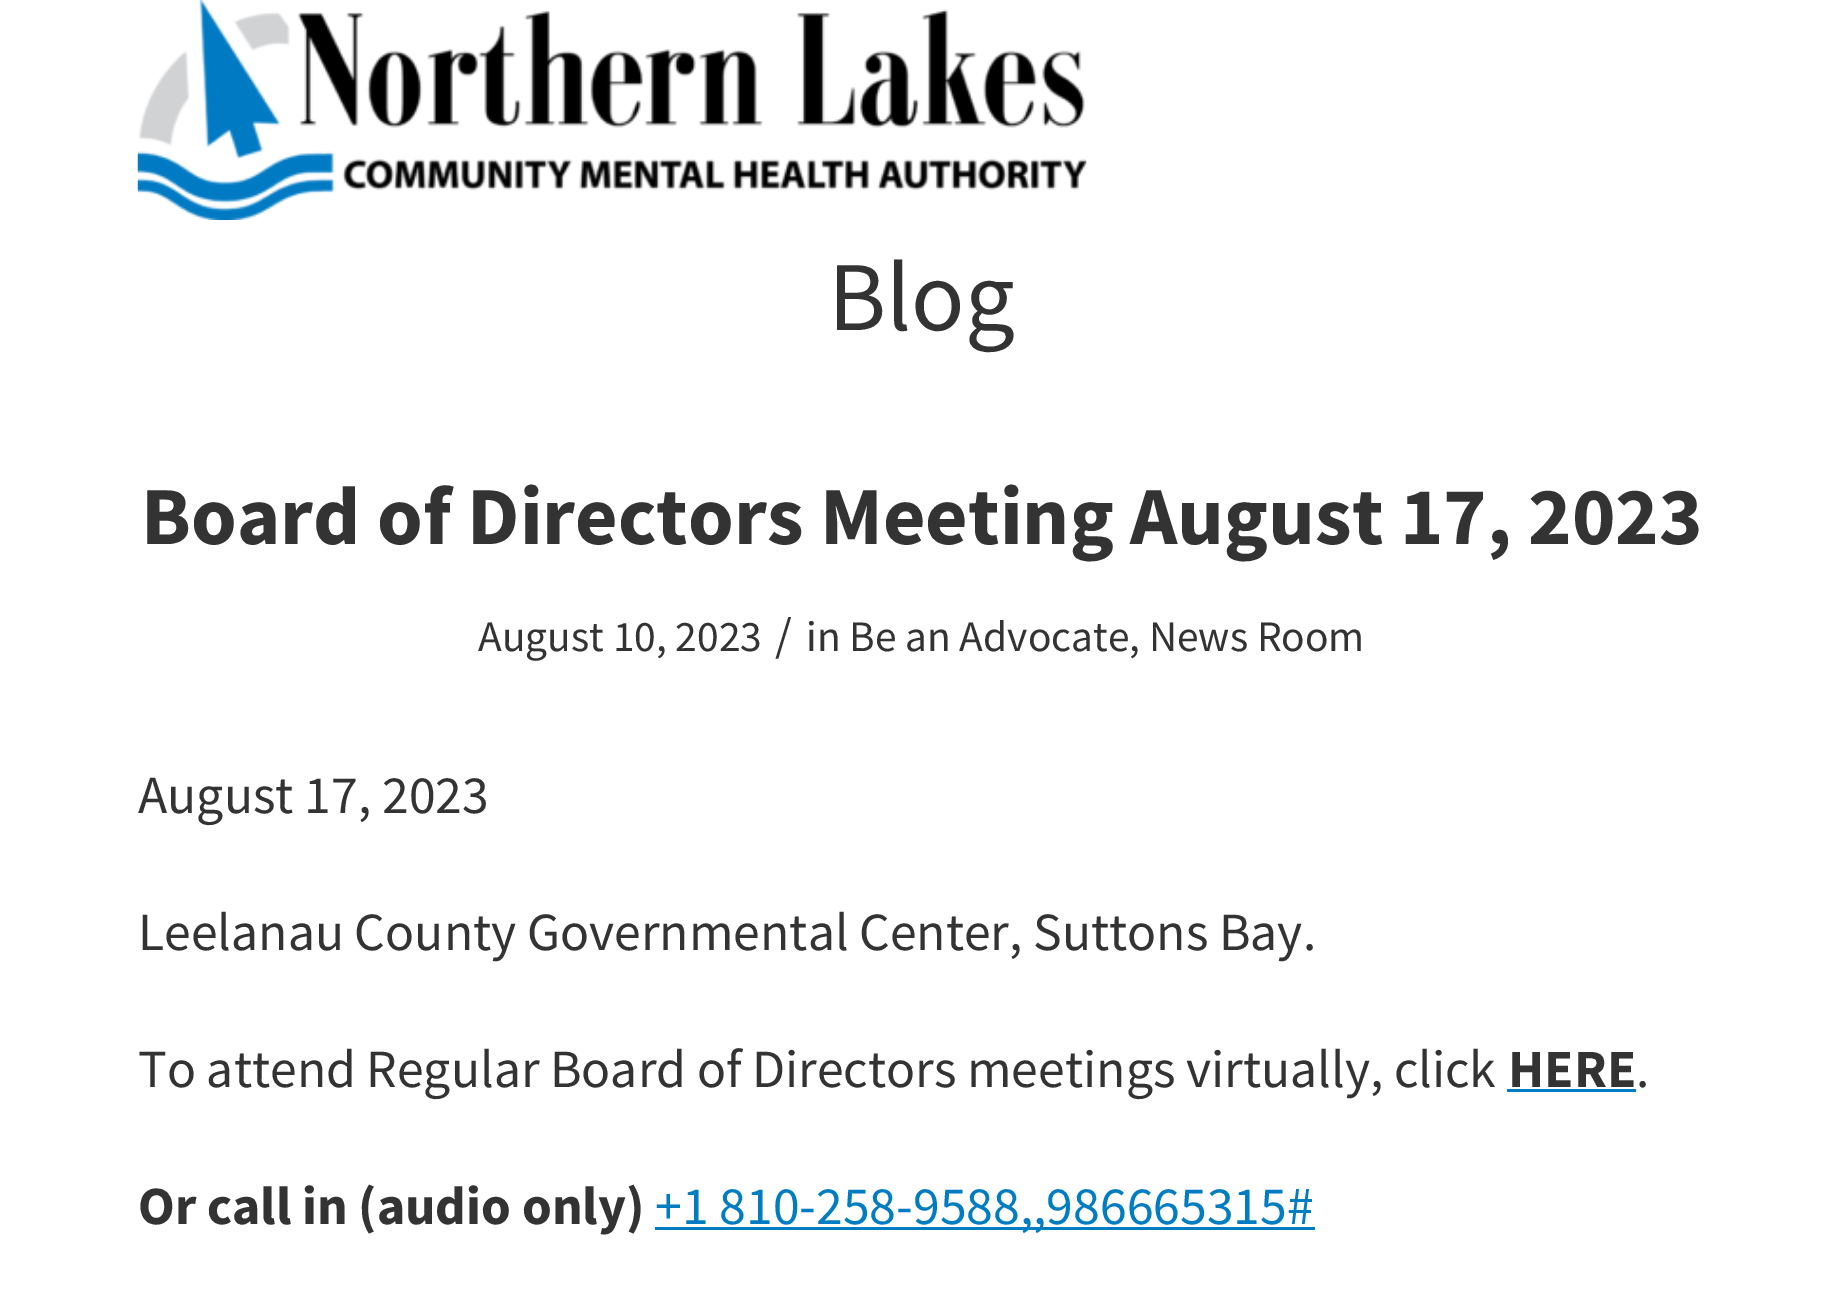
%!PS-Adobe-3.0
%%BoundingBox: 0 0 1841 1314
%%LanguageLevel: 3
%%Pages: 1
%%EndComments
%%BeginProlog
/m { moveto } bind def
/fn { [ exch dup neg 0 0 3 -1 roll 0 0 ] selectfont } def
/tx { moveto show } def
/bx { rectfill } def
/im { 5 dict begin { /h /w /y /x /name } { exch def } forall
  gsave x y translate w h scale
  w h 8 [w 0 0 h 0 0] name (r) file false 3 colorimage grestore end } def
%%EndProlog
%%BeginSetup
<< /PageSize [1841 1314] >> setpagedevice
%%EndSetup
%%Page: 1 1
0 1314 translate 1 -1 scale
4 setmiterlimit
1 setgray
0 0 1841 1314 bx
(image0.raw) 137 0 950 220 im
/SourceSansPro-Regular 99 fn
0.2 setgray
(Blog) 828 330 tx
/SourceSansPro-Bold 82.5 fn
(Board of Directors Meeting August 17, 2023) 141 544 tx
/SourceSansPro-Regular 43.5 fn
(August 10, 2023) 478 651 tx
/SourceSansPro-Regular 48 fn
(/) 775 651 tx
/SourceSansPro-Regular 43.5 fn
(in Be an Advocate, News Room) 806 651 tx
/SourceSansPro-Regular 53.75 fn
(August 17, 2023) 138 813 tx
138 950 m -0.25 0 32 (Leelanau County Governmental Center, Suttons Bay.) widthshow
138 1087 m -0.25 0 32 (To attend Regular Board of Directors meetings virtually, click) widthshow
/SourceSansPro-Bold 53.75 fn
(HERE) 1508 1087 tx
0 0.486 0.765 setrgbcolor
1507 1089 129 3 bx
/SourceSansPro-Regular 53.75 fn
0.2 setgray
(.) 1636 1087 tx
/SourceSansPro-Bold 53.75 fn
(Or call in \(audio only\)) 138 1224 tx
0 0.486 0.765 setrgbcolor
655 1227 660 3 bx
/SourceSansPro-Regular 53.75 fn
(+1 810-258-9588,,986665315#) 655 1224 tx
showpage
%%EOF
